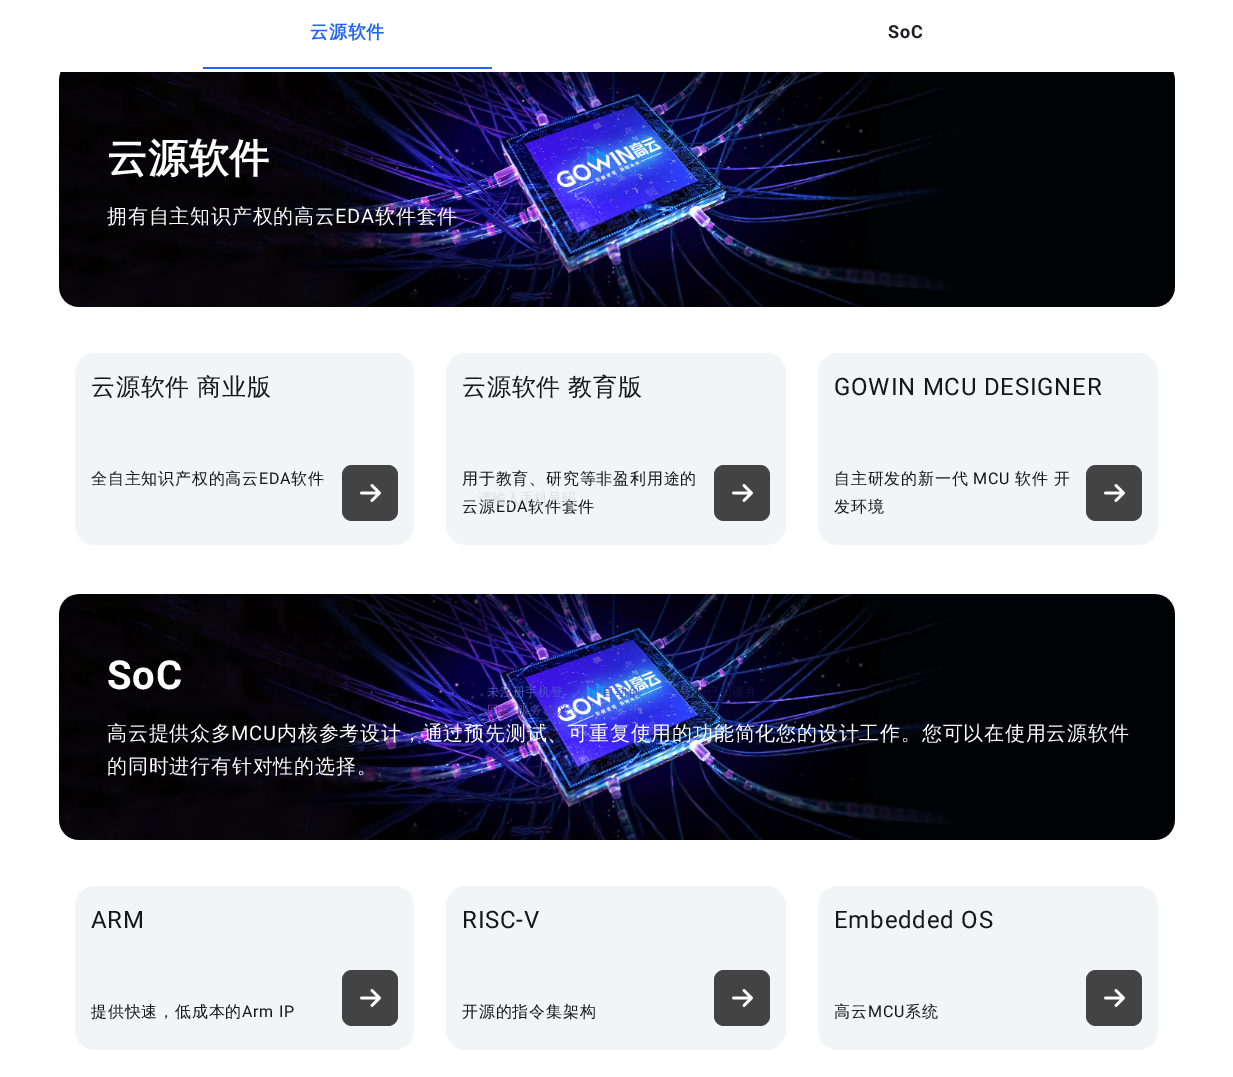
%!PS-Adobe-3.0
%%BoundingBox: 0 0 1233 1077
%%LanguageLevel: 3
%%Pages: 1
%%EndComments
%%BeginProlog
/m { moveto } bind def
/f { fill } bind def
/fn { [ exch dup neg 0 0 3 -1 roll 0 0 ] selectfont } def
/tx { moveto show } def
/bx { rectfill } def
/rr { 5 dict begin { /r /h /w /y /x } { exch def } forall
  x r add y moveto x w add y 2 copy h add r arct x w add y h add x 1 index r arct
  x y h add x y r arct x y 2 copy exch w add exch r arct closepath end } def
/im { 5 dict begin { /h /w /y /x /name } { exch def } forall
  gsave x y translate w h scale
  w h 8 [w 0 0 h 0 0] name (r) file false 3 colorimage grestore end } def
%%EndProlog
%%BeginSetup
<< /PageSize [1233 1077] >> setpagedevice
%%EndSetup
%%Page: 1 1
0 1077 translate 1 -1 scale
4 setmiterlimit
1 setgray
0 0 1233 1077 bx
/WenQuanYiZenHei-Bold 18 fn
0.118 0.4 0.973 setrgbcolor
310 38 m 0.8 0 (云源软件) ashow
203 67 289 2 bx
/Roboto-Bold 18 fn
0.118 0.118 0.153 setrgbcolor
888 38 m 0.8 0 (SoC) ashow
(image0.raw) 59 72 1116 235 im
/WenQuanYiZenHei-Bold 40 fn
1 setgray
107 172 m 0.8 0 (云源软件) ashow
/WenQuanYiZenHei-Medium 20 fn
107 223 m 0.8 0 (拥有自主知识产权的高云) ashow
/Roboto-Regular 20 fn
335 223 m 0.8 0 (EDA) ashow
/WenQuanYiZenHei-Medium 20 fn
375 223 m 0.8 0 (软件套件) ashow
0.953 0.957 0.973 setrgbcolor
75 353 339 192 20 rr f
/WenQuanYiZenHei-Medium 24 fn
0.09 setgray
91 395 m -1 0 32 0.8 0 (云源软件 商业版) awidthshow
/WenQuanYiZenHei-Medium 16 fn
91 484 m 0.8 0 (全自主知识产权的高云) ashow
/Roboto-Regular 16 fn
259 484 m 0.8 0 (EDA) ashow
/WenQuanYiZenHei-Medium 16 fn
291 484 m 0.8 0 (软件) ashow
0.263 0.263 0.267 setrgbcolor
342 465 56 56 10 rr f
(image1.raw) 360 484 21 18 im
0.953 0.957 0.973 setrgbcolor
446 353 340 192 20 rr f
/WenQuanYiZenHei-Medium 24 fn
0.09 setgray
462 395 m -1 0 32 0.8 0 (云源软件 教育版) awidthshow
/WenQuanYiZenHei-Medium 16 fn
462 484 m 0.8 0 (用于教育、研究等非盈利用途的) ashow
462 512 m 0.8 0 (云源) ashow
/Roboto-Regular 16 fn
496 512 m 0.8 0 (EDA) ashow
/WenQuanYiZenHei-Medium 16 fn
528 512 m 0.8 0 (软件套件) ashow
0.263 0.263 0.267 setrgbcolor
714 465 56 56 10 rr f
(image1.raw) 732 484 21 18 im
0.953 0.957 0.973 setrgbcolor
818 353 340 192 20 rr f
/Roboto-Regular 24 fn
0.09 setgray
834 395 m 0.8 0 (GOWIN MCU DESIGNER) ashow
/WenQuanYiZenHei-Medium 16 fn
834 484 m 0.8 0 (自主研发的新一代) ashow
/Roboto-Regular 16 fn
973 484 m 0.8 0 (MCU) ashow
/WenQuanYiZenHei-Medium 16 fn
1015 484 m 0.8 0 (软件 开) ashow
834 512 m 0.8 0 (发环境) ashow
0.263 0.263 0.267 setrgbcolor
1086 465 56 56 10 rr f
(image1.raw) 1104 484 21 18 im
/WenQuanYiZenHei-Medium 14 fn
0.867 0.871 0.886 setrgbcolor
(请输入手机号码) 478 503 tx
(image2.raw) 59 594 1116 246 im
/WenQuanYiZenHei-Medium 12 fn
0.271 0.341 0.78 setrgbcolor
487 696 m 0.8 0 (未注册手机登) ashow
602 696 m 0.8 0 (自动创) ashow
679 696 m 0.8 0 (号) ashow
0.071 0.071 0.259 setrgbcolor
694 696 m 0.8 0 (我已阅读并) ashow
0.376 0.192 0.655 setrgbcolor
487 714 m 0.8 0 (同意) ashow
0.275 0.255 0.671 setrgbcolor
517 714 m 0.8 0 (服务协议) ashow
/Roboto-Bold 40 fn
1 setgray
107 689 m 0.8 0 (SoC) ashow
/WenQuanYiZenHei-Medium 20 fn
107 740 m 0.8 0 (高云提供众多) ashow
/Roboto-Regular 20 fn
231 740 m 0.8 0 (MCU) ashow
/WenQuanYiZenHei-Medium 20 fn
277 740 m 0.8 0 (内核参考设计，通过预先测试、可重复使用的功能简化您的设计工作。您可以在使用云源软件) ashow
107 773 m 0.8 0 (的同时进行有针对性的选择。) ashow
0.953 0.957 0.973 setrgbcolor
75 886 339 164 20 rr f
/Roboto-Regular 24 fn
0.09 setgray
91 928 m 0.8 0 (ARM) ashow
/WenQuanYiZenHei-Medium 16 fn
91 1017 m 0.8 0 (提供快速，低成本的) ashow
/Roboto-Regular 16 fn
242 1017 m 0.8 0 (Arm IP) ashow
0.263 0.263 0.267 setrgbcolor
342 970 56 56 10 rr f
(image1.raw) 360 989 21 18 im
0.953 0.957 0.973 setrgbcolor
446 886 340 164 20 rr f
/Roboto-Regular 24 fn
0.09 setgray
462 928 m 0.8 0 (RISC-V) ashow
/WenQuanYiZenHei-Medium 16 fn
462 1017 m 0.8 0 (开源的指令集架构) ashow
0.263 0.263 0.267 setrgbcolor
714 970 56 56 10 rr f
(image1.raw) 732 989 21 18 im
0.953 0.957 0.973 setrgbcolor
818 886 340 164 20 rr f
/Roboto-Regular 24 fn
0.09 setgray
834 928 m 0.8 0 (Embedded OS) ashow
/WenQuanYiZenHei-Medium 16 fn
834 1017 m 0.8 0 (高云) ashow
/Roboto-Regular 16 fn
868 1017 m 0.8 0 (MCU) ashow
/WenQuanYiZenHei-Medium 16 fn
905 1017 m 0.8 0 (系统) ashow
0.263 0.263 0.267 setrgbcolor
1086 970 56 56 10 rr f
(image1.raw) 1104 989 21 18 im
showpage
%%EOF
